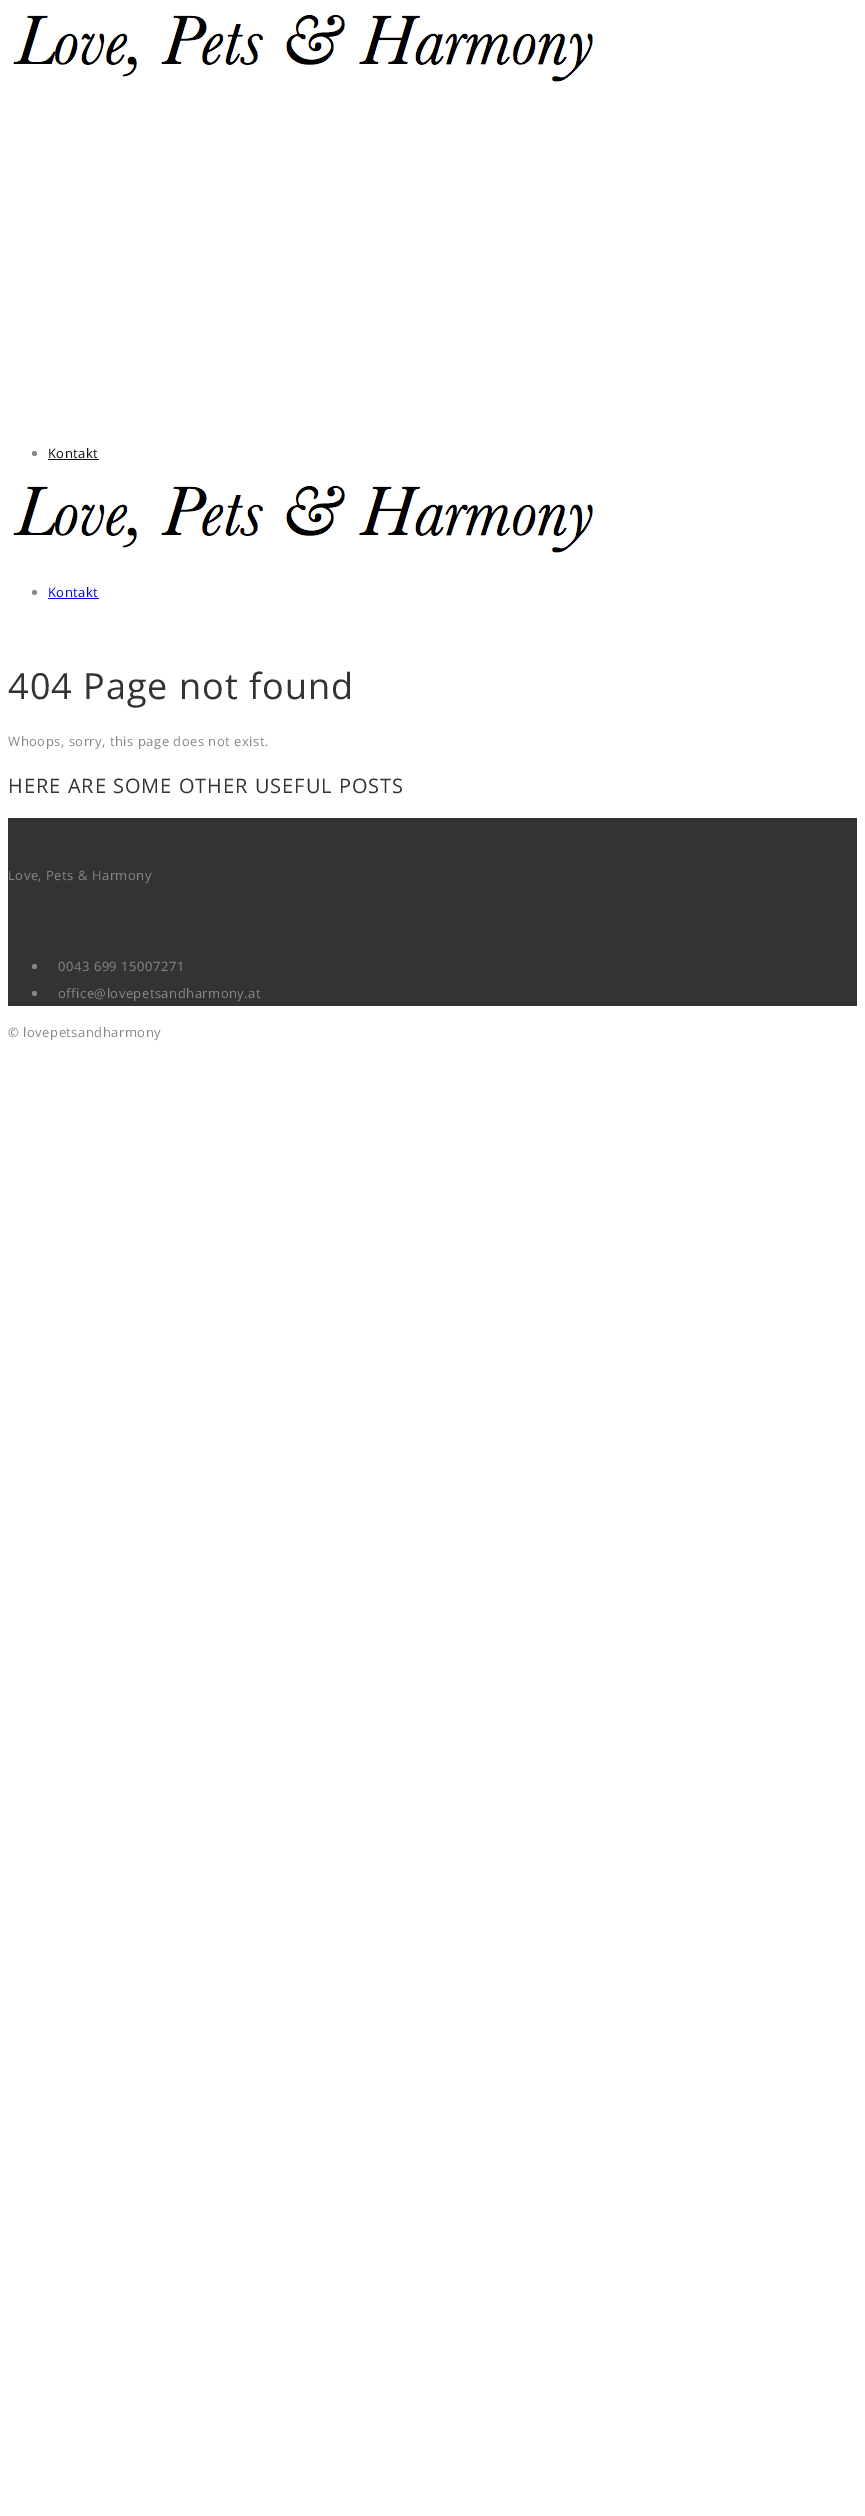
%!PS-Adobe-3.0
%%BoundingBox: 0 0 865 2516
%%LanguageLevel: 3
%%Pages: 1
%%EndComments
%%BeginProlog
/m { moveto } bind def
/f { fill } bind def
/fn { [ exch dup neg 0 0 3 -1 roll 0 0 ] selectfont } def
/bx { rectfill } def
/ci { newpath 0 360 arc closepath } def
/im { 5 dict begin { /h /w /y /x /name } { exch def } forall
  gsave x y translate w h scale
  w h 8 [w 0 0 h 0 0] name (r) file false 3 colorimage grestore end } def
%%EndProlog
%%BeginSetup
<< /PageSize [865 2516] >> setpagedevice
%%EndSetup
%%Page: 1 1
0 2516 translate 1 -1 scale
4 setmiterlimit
1 setgray
0 0 865 2516 bx
(image0.raw) 13 14 580 68 im
0.533 setgray
34.5 453.5 2.5 ci f
/OpenSans-Regular 13 fn
0.059 setgray
48 458 m 0.5 0 (Kontakt) ashow
48 459 51 1 bx
(image0.raw) 13 485 580 68 im
0.533 setgray
34.5 592.5 2.5 ci f
0 0 0.933 setrgbcolor
48 597 m 0.5 0 (Kontakt) ashow
48 598 51 1 bx
/OpenSans-Regular 36 fn
0.2 setgray
8 699 m 1 0 (404 Page not found) ashow
/OpenSans-Regular 13 fn
0.533 setgray
8 746 m 0.5 0 (Whoops, sorry, this page does not exist.) ashow
/OpenSans-Regular 20 fn
0.2 setgray
8 793 m 1 0 (HERE ARE SOME OTHER USEFUL POSTS) ashow
8 818 849 188 bx
/OpenSans-Regular 13 fn
0.533 setgray
8 880 m 0.5 0 (Love, Pets & Harmony) ashow
34.5 966.5 2.5 ci f
58 971 m 0.5 0 (0043 699 15007271) ashow
34.5 993.5 2.5 ci f
58 998 m 0.5 0 (office@lovepetsandharmony.at) ashow
8 1037 m 0.5 0 (© lovepetsandharmony) ashow
showpage
%%EOF
